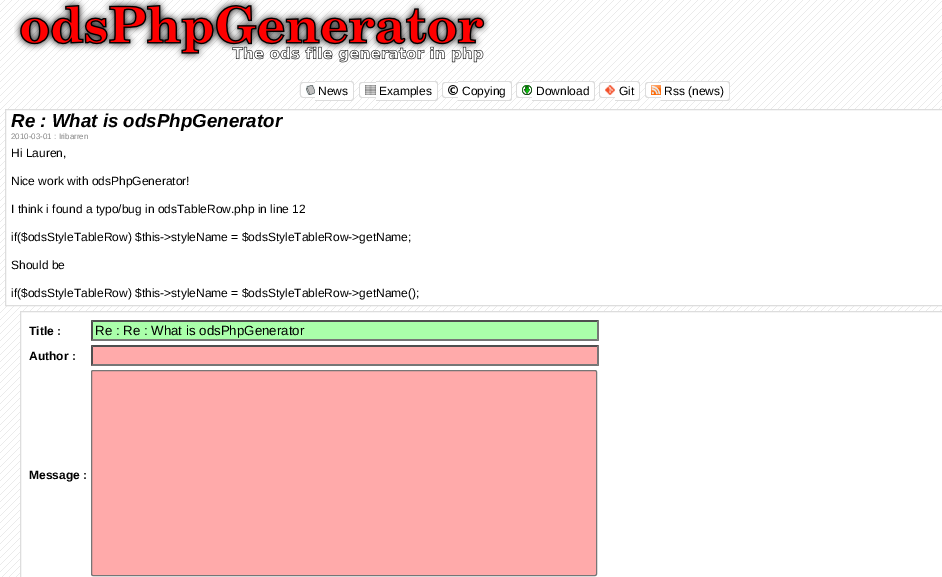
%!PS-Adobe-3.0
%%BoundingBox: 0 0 942 577
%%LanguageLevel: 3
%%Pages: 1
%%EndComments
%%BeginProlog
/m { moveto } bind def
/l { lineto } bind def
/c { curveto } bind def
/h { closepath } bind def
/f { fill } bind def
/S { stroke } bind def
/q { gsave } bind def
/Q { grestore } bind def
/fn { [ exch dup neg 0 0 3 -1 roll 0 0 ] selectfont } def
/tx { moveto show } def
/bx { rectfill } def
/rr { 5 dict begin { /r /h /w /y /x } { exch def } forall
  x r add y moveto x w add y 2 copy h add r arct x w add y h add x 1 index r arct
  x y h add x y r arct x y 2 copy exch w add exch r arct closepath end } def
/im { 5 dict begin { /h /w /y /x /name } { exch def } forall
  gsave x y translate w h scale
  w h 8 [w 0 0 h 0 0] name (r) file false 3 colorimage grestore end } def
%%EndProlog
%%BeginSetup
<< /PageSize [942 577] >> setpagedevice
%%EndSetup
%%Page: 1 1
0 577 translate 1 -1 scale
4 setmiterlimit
1 setgray
0 0 942 577 bx
(image0.raw) 0 0 942 577 im
(image1.raw) 14 0 476 63 im
303 82 m 315 82 l 315 98 l 303 98 l 301.5 98 300 96.5 300 95 c 300 85 l 300 83.5 301.5 82 303 82 c h f
0.867 setgray
303 82 m 315 82 l 315 98 l 305 98 l 299 98 300 95.5 300 90 c 300 87.5 299 82 303 82 c h 303 83 m 315 83 l 315 97 l 303 97 l 302 97 301 96 301 95 c 301 85 l 301 84 302 83 303 83 c h eofill
(image2.raw) 306 85 9 10 im
1 setgray
315 81 m 351 81 l 352.5 81 354 82.5 354 84 c 354 98 l 354 99.5 352.5 101 351 101 c 315 101 l h f
0.867 setgray
315 81 m 351 81 l 352.5 81 354 82.5 354 84 c 354 98 l 354 99.5 352.5 101 351 101 c 315 101 l h 315 82 m 351 82 l 352 82 353 83 353 84 c 353 98 l 353 99 352 100 351 100 c 315 100 l h eofill
/LiberationSans-Regular 12 fn
0 setgray
(News) 318 95 tx
1 setgray
362 82 m 376 82 l 376 98 l 362 98 l 360.5 98 359 96.5 359 95 c 359 85 l 359 83.5 360.5 82 362 82 c h f
0.867 setgray
362 82 m 376 82 l 376 98 l 362 98 l 360.5 98 359 96.5 359 95 c 359 85 l 359 83.5 360.5 82 362 82 c h 362 83 m 376 83 l 376 97 l 362 97 l 361 97 360 96 360 95 c 360 85 l 360 84 361 83 362 83 c h eofill
(image3.raw) 365 85 11 10 im
1 setgray
376 81 m 435 81 l 436.5 81 438 82.5 438 84 c 438 98 l 438 99.5 436.5 101 435 101 c 376 101 l h f
0.867 setgray
376 81 m 435 81 l 437 81 438 82 438 84 c 438 98 l 438 100 437 101 435 101 c 376 101 l h 376 82 m 435 82 l 436 82 437 83 437 84 c 437 98 l 437 99 436 100 435 100 c 376 100 l h eofill
0 setgray
(Examples) 379 95 tx
1 setgray
445 82 m 458 82 l 458 98 l 445 98 l 443.5 98 442 96.5 442 95 c 442 85 l 442 83.5 443.5 82 445 82 c h f
0.867 setgray
445 82 m 458 82 l 458 98 l 445 98 l 443.5 98 442 96.5 442 95 c 442 85 l 442 83.5 443.5 82 445 82 c h 445 83 m 458 83 l 458 97 l 445 97 l 444 97 443 96 443 95 c 443 85 l 443 84 444 83 445 83 c h eofill
(image4.raw) 448 85 10 10 im
1 setgray
458 81 m 509 81 l 510.5 81 512 82.5 512 84 c 512 98 l 512 99.5 510.5 101 509 101 c 458 101 l h f
0.867 setgray
458 81 m 509 81 l 511 81 512 82 512 84 c 512 98 l 512 100 511 101 509 101 c 458 101 l h 458 82 m 509 82 l 510 82 511 83 511 84 c 511 98 l 511 99 510 100 509 100 c 458 100 l h eofill
0 setgray
(Copying) 462 95 tx
1 setgray
519 82 m 532 82 l 532 98 l 519 98 l 517.5 98 516 96.5 516 95 c 516 85 l 516 83.5 517.5 82 519 82 c h f
0.867 setgray
519 82 m 532 82 l 532 98 l 519 98 l 517.5 98 516 96.5 516 95 c 516 85 l 516 83.5 517.5 82 519 82 c h 519 83 m 532 83 l 532 97 l 519 97 l 518 97 517 96 517 95 c 517 85 l 517 84 518 83 519 83 c h eofill
(image5.raw) 522 85 10 10 im
1 setgray
532 81 m 592 81 l 593.5 81 595 82.5 595 84 c 595 98 l 595 99.5 593.5 101 592 101 c 532 101 l h f
0.867 setgray
532 81 m 592 81 l 594 81 595 82 595 84 c 595 98 l 595 100 594 101 592 101 c 532 101 l h 532 82 m 592 82 l 593 82 594 83 594 84 c 594 98 l 594 99 593 100 592 100 c 532 100 l h eofill
0 setgray
(Download) 536 95 tx
1 setgray
602 82 m 615 82 l 615 98 l 602 98 l 600.5 98 599 96.5 599 95 c 599 85 l 599 83.5 600.5 82 602 82 c h f
0.867 setgray
602 82 m 615 82 l 615 98 l 602 98 l 600.5 98 599 96.5 599 95 c 599 85 l 599 83.5 600.5 82 602 82 c h 602 83 m 615 83 l 615 97 l 602 97 l 601 97 600 96 600 95 c 600 85 l 600 84 601 83 602 83 c h eofill
(image6.raw) 605 85 10 10 im
1 setgray
615 81 m 637 81 l 638.5 81 640 82.5 640 84 c 640 98 l 640 99.5 638.5 101 637 101 c 615 101 l h f
0.867 setgray
615 81 m 637 81 l 638.5 81 640 82.5 640 84 c 640 98 l 640 99.5 638.5 101 637 101 c 615 101 l h 615 82 m 637 82 l 638 82 639 83 639 84 c 639 98 l 639 99 638 100 637 100 c 615 100 l h eofill
0 setgray
(Git) 619 95 tx
1 setgray
648 82 m 661 82 l 661 98 l 648 98 l 646.5 98 645 96.5 645 95 c 645 85 l 645 83.5 646.5 82 648 82 c h f
0.867 setgray
648 82 m 661 82 l 661 98 l 648 98 l 646.5 98 645 96.5 645 95 c 645 85 l 645 83.5 646.5 82 648 82 c h 648 83 m 661 83 l 661 97 l 648 97 l 647 97 646 96 646 95 c 646 85 l 646 84 647 83 648 83 c h eofill
(image7.raw) 651 85 10 10 im
1 setgray
661 81 m 727 81 l 728.5 81 730 82.5 730 84 c 730 98 l 730 99.5 728.5 101 727 101 c 661 101 l h f
0.867 setgray
661 81 m 727 81 l 729 81 730 82 730 84 c 730 98 l 730 100 729 101 727 101 c 661 101 l h 661 82 m 727 82 l 728 82 729 83 729 84 c 729 98 l 729 99 728 100 727 100 c 661 100 l h eofill
0 setgray
(Rss \(news\)) 664 95 tx
1 setgray
5.5 109.5 m 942.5 109.5 l 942.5 305.5 l 5.5 305.5 l h q f Q
0.867 setgray
S
/LiberationSans-BoldItalic 18.75 fn
0 setgray
(Re : What is odsPhpGenerator) 11 127 tx
/LiberationSans-Regular 8 fn
0.533 setgray
(2010-03-01 : Iribarren) 11 139 tx
/LiberationSans-Regular 12 fn
0 setgray
(Hi Lauren,) 11 157 tx
(Nice work with odsPhpGenerator!) 11 185 tx
(I think i found a typo/bug in odsTableRow.php in line 12) 11 213 tx
(if\($odsStyleTableRow\) $this->styleName = $odsStyleTableRow->getName;) 11 241 tx
(Should be) 11 269 tx
(if\($odsStyleTableRow\) $this->styleName = $odsStyleTableRow->getName\(\);) 11 297 tx
1 setgray
20.5 311.5 m 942.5 311.5 l 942.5 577.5 l 20.5 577.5 l h q f Q
0.867 setgray
S
/LiberationSans-Bold 12 fn
0 setgray
(Title :) 29 335 tx
0.667 1 0.667 setrgbcolor
91 320 508 21 bx
0.31 setgray
91 320 m 599 320 l 597 322 l 93 322 l h f
0.463 setgray
599 320 m 599 341 l 597 339 l 597 322 l h f
599 341 m 91 341 l 93 339 l 597 339 l h f
0.31 setgray
91 341 m 91 320 l 93 322 l 93 339 l h f
/LiberationSans-Regular 13.3 fn
0 setgray
(Re : Re : What is odsPhpGenerator) 95 335 tx
/LiberationSans-Bold 12 fn
(Author :) 29 360 tx
1 0.667 0.667 setrgbcolor
91 345 508 21 bx
0.31 setgray
91 345 m 599 345 l 597 347 l 93 347 l h f
0.463 setgray
599 345 m 599 366 l 597 364 l 597 347 l h f
599 366 m 91 366 l 93 364 l 597 364 l h f
0.31 setgray
91 366 m 91 345 l 93 347 l 93 364 l h f
0 setgray
(Message :) 29 479 tx
1 0.667 0.667 setrgbcolor
91.5 370.5 505 205 1.5 rr q f Q
0.463 setgray
S
showpage
%%EOF
